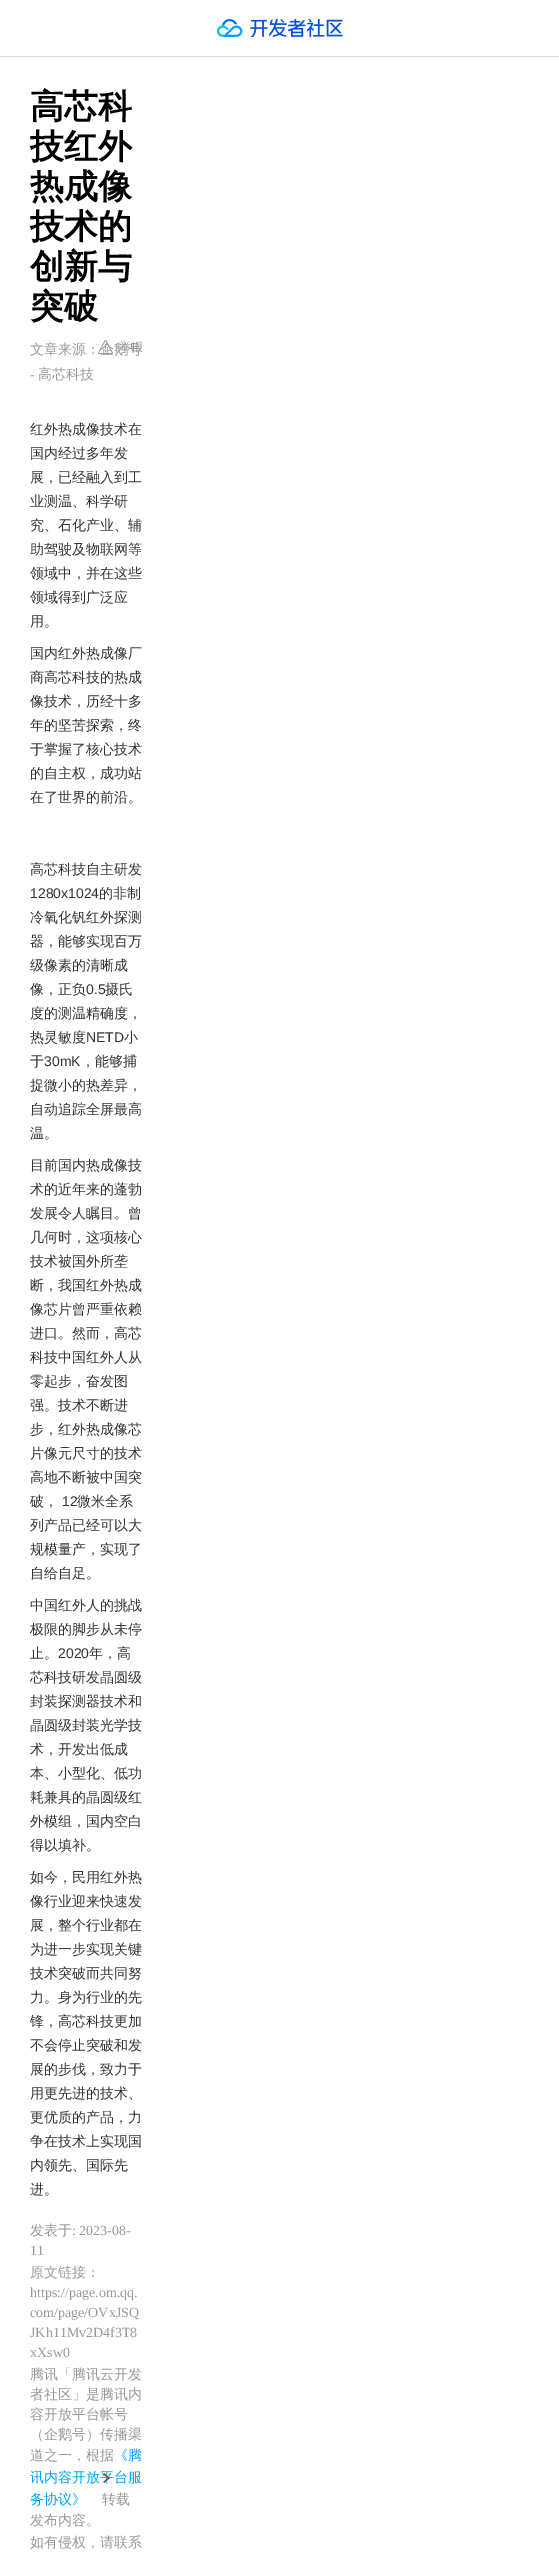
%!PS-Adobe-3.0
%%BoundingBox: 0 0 559 2556
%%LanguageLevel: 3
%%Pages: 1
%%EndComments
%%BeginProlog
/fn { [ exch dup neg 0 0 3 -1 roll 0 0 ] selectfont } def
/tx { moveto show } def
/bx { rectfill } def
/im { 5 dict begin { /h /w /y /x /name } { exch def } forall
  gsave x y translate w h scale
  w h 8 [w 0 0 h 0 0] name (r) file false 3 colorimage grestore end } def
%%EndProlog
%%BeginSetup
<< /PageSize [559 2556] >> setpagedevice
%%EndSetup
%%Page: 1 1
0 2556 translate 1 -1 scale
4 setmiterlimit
1 setgray
0 0 559 2556 bx
0.839 0.859 0.89 setrgbcolor
0 56 559 1 bx
(image0.raw) 217 19 126 18 im
/WenQuanYiZenHei-Bold 34 fn
0 setgray
(高芯科) 30 118 tx
(技红外) 30 158 tx
(热成像) 30 198 tx
(技术的) 30 238 tx
(创新与) 30 278 tx
(突破) 30 318 tx
/WenQuanYiZenHei-Medium 14 fn
0.6 setgray
(文章来源：企鹅号) 30 354 tx
(image1.raw) 98 340 15 14 im
/WenQuanYiZenHei-Medium 12 fn
(举报) 119 351 tx
/LiberationSerif-Regular 14 fn
(-) 30 379 tx
/WenQuanYiZenHei-Medium 14 fn
(高芯科技) 38 379 tx
0.2 setgray
(红外热成像技术在) 30 434 tx
(国内经过多年发) 30 458 tx
(展，已经融入到工) 30 482 tx
(业测温、科学研) 30 506 tx
(究、石化产业、辅) 30 530 tx
(助驾驶及物联网等) 30 554 tx
(领域中，并在这些) 30 578 tx
(领域得到广泛应) 30 602 tx
(用。) 30 626 tx
(国内红外热成像厂) 30 658 tx
(商高芯科技的热成) 30 682 tx
(像技术，历经十多) 30 706 tx
(年的坚苦探索，终) 30 730 tx
(于掌握了核心技术) 30 754 tx
(的自主权，成功站) 30 778 tx
(在了世界的前沿。) 30 802 tx
(高芯科技自主研发) 30 874 tx
/LiberationSans-Regular 14 fn
(1280x1024) 30 898 tx
/WenQuanYiZenHei-Medium 14 fn
(的非制) 99 898 tx
(冷氧化钒红外探测) 30 922 tx
(器，能够实现百万) 30 946 tx
(级像素的清晰成) 30 970 tx
(像，正负) 30 994 tx
/LiberationSans-Regular 14 fn
(0.5) 86 994 tx
/WenQuanYiZenHei-Medium 14 fn
(摄氏) 105 994 tx
(度的测温精确度，) 30 1018 tx
(热灵敏度) 30 1042 tx
/LiberationSans-Regular 14 fn
(NETD) 86 1042 tx
/WenQuanYiZenHei-Medium 14 fn
(小) 124 1042 tx
(于) 30 1066 tx
/LiberationSans-Regular 14 fn
(30mK) 44 1066 tx
/WenQuanYiZenHei-Medium 14 fn
(，能够捕) 81 1066 tx
(捉微小的热差异，) 30 1090 tx
(自动追踪全屏最高) 30 1114 tx
(温。) 30 1138 tx
(目前国内热成像技) 30 1170 tx
(术的近年来的蓬勃) 30 1194 tx
(发展令人瞩目。曾) 30 1218 tx
(几何时，这项核心) 30 1242 tx
(技术被国外所垄) 30 1266 tx
(断，我国红外热成) 30 1290 tx
(像芯片曾严重依赖) 30 1314 tx
(进口。然而，高芯) 30 1338 tx
(科技中国红外人从) 30 1362 tx
(零起步，奋发图) 30 1386 tx
(强。技术不断进) 30 1410 tx
(步，红外热成像芯) 30 1434 tx
(片像元尺寸的技术) 30 1458 tx
(高地不断被中国突) 30 1482 tx
(破，) 30 1506 tx
/LiberationSans-Regular 14 fn
(12) 62 1506 tx
/WenQuanYiZenHei-Medium 14 fn
(微米全系) 77 1506 tx
(列产品已经可以大) 30 1530 tx
(规模量产，实现了) 30 1554 tx
(自给自足。) 30 1578 tx
(中国红外人的挑战) 30 1610 tx
(极限的脚步从未停) 30 1634 tx
(止。) 30 1658 tx
/LiberationSans-Regular 14 fn
(2020) 58 1658 tx
/WenQuanYiZenHei-Medium 14 fn
(年，高) 89 1658 tx
(芯科技研发晶圆级) 30 1682 tx
(封装探测器技术和) 30 1706 tx
(晶圆级封装光学技) 30 1730 tx
(术，开发出低成) 30 1754 tx
(本、小型化、低功) 30 1778 tx
(耗兼具的晶圆级红) 30 1802 tx
(外模组，国内空白) 30 1826 tx
(得以填补。) 30 1850 tx
(如今，民用红外热) 30 1882 tx
(像行业迎来快速发) 30 1906 tx
(展，整个行业都在) 30 1930 tx
(为进一步实现关键) 30 1954 tx
(技术突破而共同努) 30 1978 tx
(力。身为行业的先) 30 2002 tx
(锋，高芯科技更加) 30 2026 tx
(不会停止突破和发) 30 2050 tx
(展的步伐，致力于) 30 2074 tx
(用更先进的技术、) 30 2098 tx
(更优质的产品，力) 30 2122 tx
(争在技术上实现国) 30 2146 tx
(内领先、国际先) 30 2170 tx
(进。) 30 2194 tx
0.6 setgray
(发表于) 30 2235 tx
/LiberationSerif-Regular 14 fn
(: 2023-08-) 72 2235 tx
(11) 30 2255 tx
/WenQuanYiZenHei-Medium 14 fn
(原文链接：) 30 2277 tx
/LiberationSerif-Regular 14 fn
(https://page.om.qq.) 30 2297 tx
(com/page/OVxJSQ) 30 2317 tx
(JKh11Mv2D4f3T8) 30 2337 tx
(xXsw0) 30 2357 tx
/WenQuanYiZenHei-Medium 14 fn
(腾讯「腾讯云开发) 30 2379 tx
(者社区」是腾讯内) 30 2399 tx
(容开放平台帐号) 30 2419 tx
(（企鹅号）传播渠) 30 2439 tx
(道之一，根据) 30 2460 tx
0 0.643 1 setrgbcolor
(《腾) 114 2460 tx
(讯内容开放平台服) 30 2482 tx
(image2.raw) 103 2473 7 10 im
(务协议》) 30 2504 tx
0.6 setgray
(转载) 102 2504 tx
(发布内容。) 30 2525 tx
(如有侵权，请联系) 30 2547 tx
showpage
%%EOF
